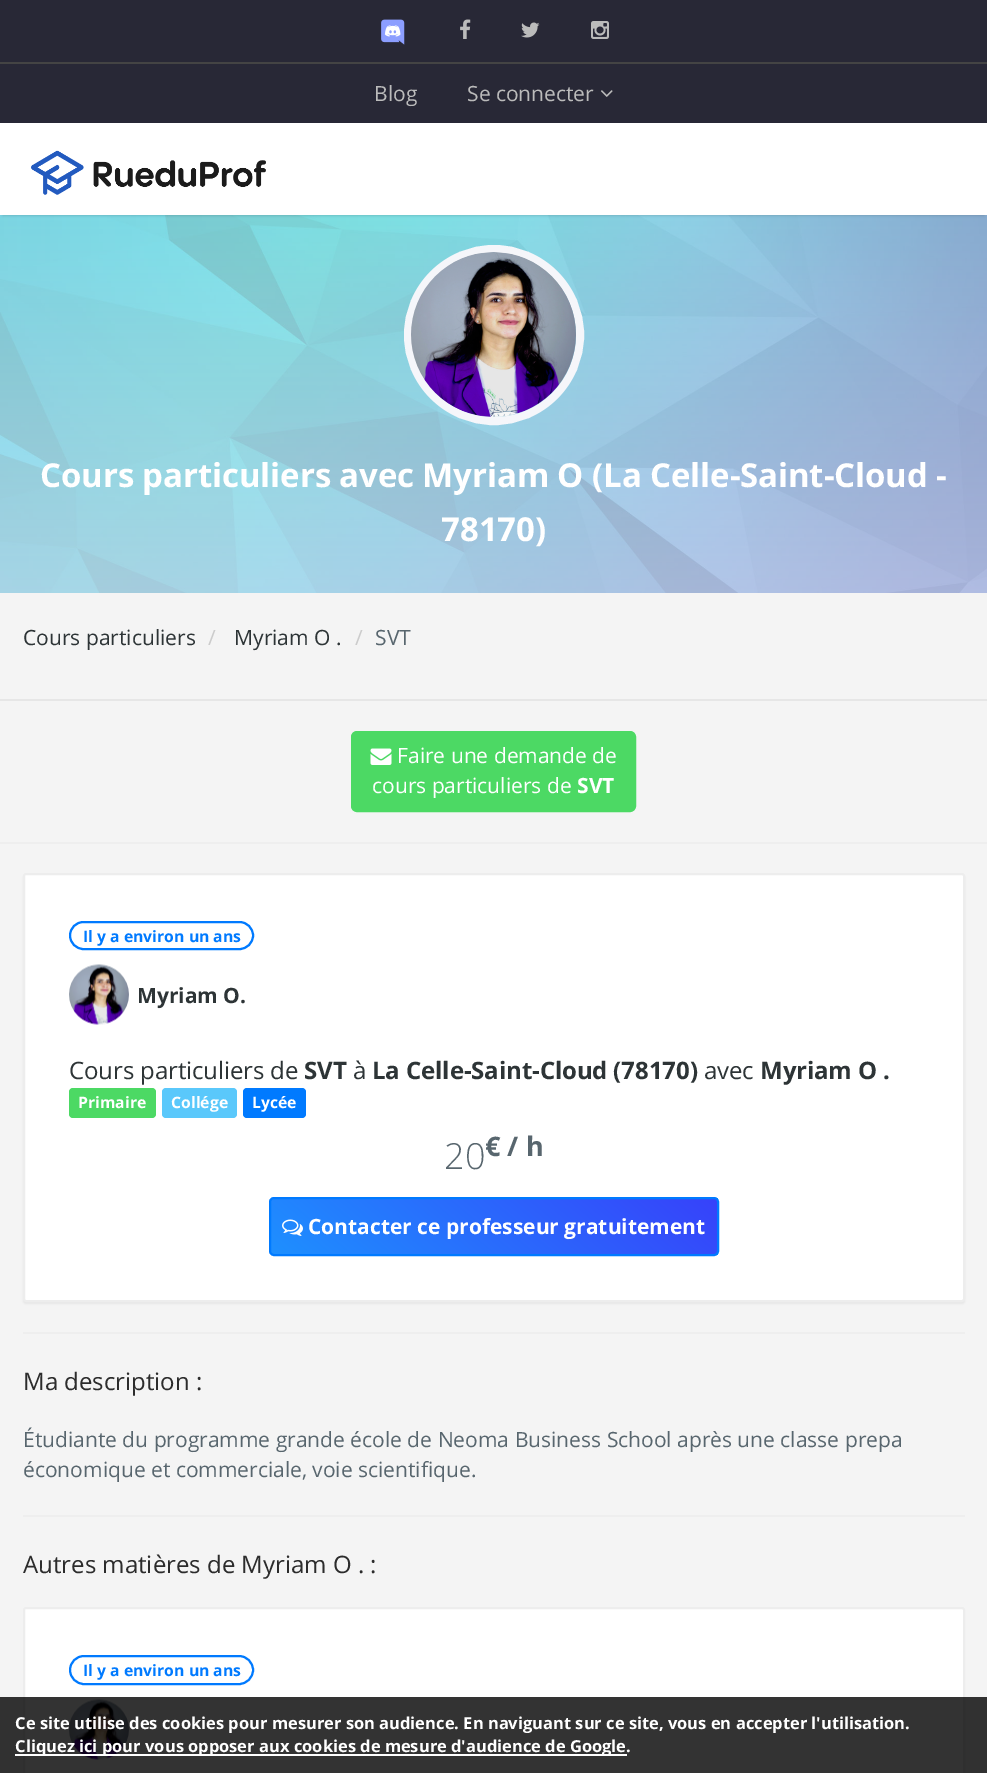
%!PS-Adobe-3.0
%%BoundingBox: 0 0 987 1773
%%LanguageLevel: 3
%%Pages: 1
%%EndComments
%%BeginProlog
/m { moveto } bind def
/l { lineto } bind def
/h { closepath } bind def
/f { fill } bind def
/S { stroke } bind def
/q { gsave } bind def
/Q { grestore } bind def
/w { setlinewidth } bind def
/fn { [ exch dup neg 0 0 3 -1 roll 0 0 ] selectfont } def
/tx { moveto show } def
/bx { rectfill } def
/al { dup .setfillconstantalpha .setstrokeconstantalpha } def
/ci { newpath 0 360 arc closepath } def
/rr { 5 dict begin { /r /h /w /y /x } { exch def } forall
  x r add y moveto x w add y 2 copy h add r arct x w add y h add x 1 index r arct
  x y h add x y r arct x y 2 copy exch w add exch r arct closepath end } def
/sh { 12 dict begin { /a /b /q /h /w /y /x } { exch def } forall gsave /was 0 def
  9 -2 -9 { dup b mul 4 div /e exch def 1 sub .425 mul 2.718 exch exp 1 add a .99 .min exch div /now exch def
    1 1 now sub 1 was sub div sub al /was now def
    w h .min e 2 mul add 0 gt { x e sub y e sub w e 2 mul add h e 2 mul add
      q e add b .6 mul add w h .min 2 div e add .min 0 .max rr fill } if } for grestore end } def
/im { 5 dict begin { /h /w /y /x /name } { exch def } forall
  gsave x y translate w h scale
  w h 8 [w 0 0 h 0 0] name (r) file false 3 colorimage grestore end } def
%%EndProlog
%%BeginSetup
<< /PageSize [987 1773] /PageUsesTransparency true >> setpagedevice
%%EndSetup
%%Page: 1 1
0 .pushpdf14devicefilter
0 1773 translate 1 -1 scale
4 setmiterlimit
0.957 setgray
0 0 987 1773 bx
0.157 0.157 0.212 setrgbcolor
0 0 987 123 bx
(image0.raw) 381 19 24 26 im
(image1.raw) 460 19 11 20 im
(image2.raw) 521 22 19 16 im
(image3.raw) 591 21 18 18 im
0.267 setgray
0 62 987 2 bx
/OpenSans-Regular 21 fn
0.733 setgray
(Blog) 374 101 tx
(Se connecter) 467 101 tx
(image4.raw) 601 90 12 7 im
(image6.raw) 0 215 987 378 im
0 setgray
3 129 981 86 0 1.5 0.2 sh
1 setgray
0 123 987 92 bx
(image5.raw) 31 150 235 45 im
0.961 0.965 0.98 setrgbcolor
8 w
494 335 86 ci S
(image7.raw) 411 252 165 165 im
/OpenSans-Bold 33 fn
1 setgray
40 487 m -0.12 0 (Cours particuliers avec Myriam O \(La Celle-Saint-Cloud -) ashow
441 541 m -0.12 0 (78170\)) ashow
0.902 setgray
0 699 987 2 bx
/OpenSans-Regular 21 fn
0.176 0.204 0.212 setrgbcolor
(Cours particuliers) 23 645 tx
0.8 setgray
(/) 208 645 tx
0.176 0.204 0.212 setrgbcolor
(Myriam O .) 234 645 tx
0.8 setgray
(/) 355 645 tx
0.345 0.4 0.431 setrgbcolor
(SVT) 375 645 tx
0.298 0.851 0.392 setrgbcolor
352 732 283 79 5 rr q f Q
2 w
S
(image8.raw) 370 748 22 17 im
1 setgray
(Faire une demande de) 397 763 tx
(cours particuliers de) 372 793 tx
/OpenSans-Bold 21 fn
(SVT) 577 793 tx
0.933 setgray
0 842 987 2 bx
0 setgray
23 875 942 429 3 1 0.05 sh
1 setgray
24 874 940 427 2 rr q f Q
0.929 setgray
S
0 0.478 1 setrgbcolor
70 922 183 27 13.5 rr S
/OpenSans-Bold 15.75 fn
(Il y a environ un ans) 83 942 tx
(image9.raw) 69 964 60 61 im
/OpenSans-Bold 21 fn
0.176 0.204 0.212 setrgbcolor
(Myriam O.) 137 1003 tx
/OpenSans-Regular 24 fn
69 1079 m -0.12 0 (Cours particuliers de) ashow
/OpenSans-Bold 24 fn
304 1079 m -0.12 0 (SVT) ashow
/OpenSans-Regular 24 fn
353 1079 m -0.12 0 (à) ashow
/OpenSans-Bold 24 fn
372 1079 m -0.12 0 (La Celle-Saint-Cloud \(78170\)) ashow
/OpenSans-Regular 24 fn
704 1079 m -0.12 0 (avec) ashow
/OpenSans-Bold 24 fn
760 1079 m -0.12 0 (Myriam O .) ashow
0.298 0.851 0.392 setrgbcolor
69 1088 87 30 4 rr f
/OpenSans-Bold 15.75 fn
1 setgray
(Primaire) 78 1108 tx
0.353 0.784 0.984 setrgbcolor
162 1088 75 30 4 rr f
1 setgray
(Collége) 171 1108 tx
0 0.478 1 setrgbcolor
243 1088 63 30 4 rr f
1 setgray
(Lycée) 252 1108 tx
/OpenSans-Light 36 fn
0.345 0.4 0.431 setrgbcolor
(20) 444 1169 tx
/OpenSans-Bold 27 fn
(€ / h) 485 1156 tx
q
269 1197 450 59 5 rr clip newpath
q 717 1198 m 719 1198 l 719 1199 l 717 1199 l h clip newpath
<< /ShadingType 2 /ColorSpace /DeviceRGB /Coords [834 1297 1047 1044] /Extend [true true] /Function << /FunctionType 2 /Domain [0 1] /C0 [0.118 0.565 1] /C1 [0.216 0.259 0.98] /N 1 >> >> shfill Q
Q
q 271 1199 m 717 1199 l 717 1254 l 271 1254 l h clip newpath
<< /ShadingType 2 /ColorSpace /DeviceRGB /Coords [387 1353 600 1100] /Extend [true true] /Function << /FunctionType 2 /Domain [0 1] /C0 [0.118 0.565 1] /C1 [0.216 0.259 0.98] /N 1 >> >> shfill Q
q
269 1197 450 59 5 rr clip newpath
q 717 1254 m 719 1254 l 719 1255 l 717 1255 l h clip newpath
<< /ShadingType 2 /ColorSpace /DeviceRGB /Coords [834 1408 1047 1155] /Extend [true true] /Function << /FunctionType 2 /Domain [0 1] /C0 [0.118 0.565 1] /C1 [0.216 0.259 0.98] /N 1 >> >> shfill Q
Q
0 0.478 1 setrgbcolor
270 1198 448 57 4 rr S
(image10.raw) 282 1219 21 17 im
/OpenSans-Bold 21 fn
1 setgray
(Contacter ce professeur gratuitement) 308 1234 tx
0.933 setgray
23 1332 942 2 bx
/OpenSans-Regular 24 fn
0.173 setgray
(Ma description :) 23 1390 tx
/OpenSans-Regular 21 fn
0.345 0.4 0.431 setrgbcolor
(Étudiante du programme grande école de Neoma Business School après une classe prepa) 23 1447 tx
(économique et commerciale, voie scientifique.) 23 1477 tx
0.933 setgray
23 1515 942 2 bx
/OpenSans-Regular 24 fn
0.173 setgray
(Autres matières de Myriam O . :) 23 1573 tx
1 setgray
24 1608 940 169 2 rr q f Q
0.929 setgray
S
0 0.478 1 setrgbcolor
70 1656 183 28 14 rr S
/OpenSans-Bold 15.75 fn
(Il y a environ un ans) 83 1676 tx
(image9.raw) 69 1699 60 61 im
0.8 al
0 setgray
0 1697 987 76 bx
/OpenSans-Bold 16.5 fn
1 al
1 setgray
(Ce site utilise des cookies pour mesurer son audience. En naviguant sur ce site, vous en accepter l'utilisation.) 15 1729 tx
15 1754 612 2 bx
(Cliquez ici pour vous opposer aux cookies de mesure d'audience de Google.) 15 1752 tx
.poppdf14devicefilter showpage
%%EOF
